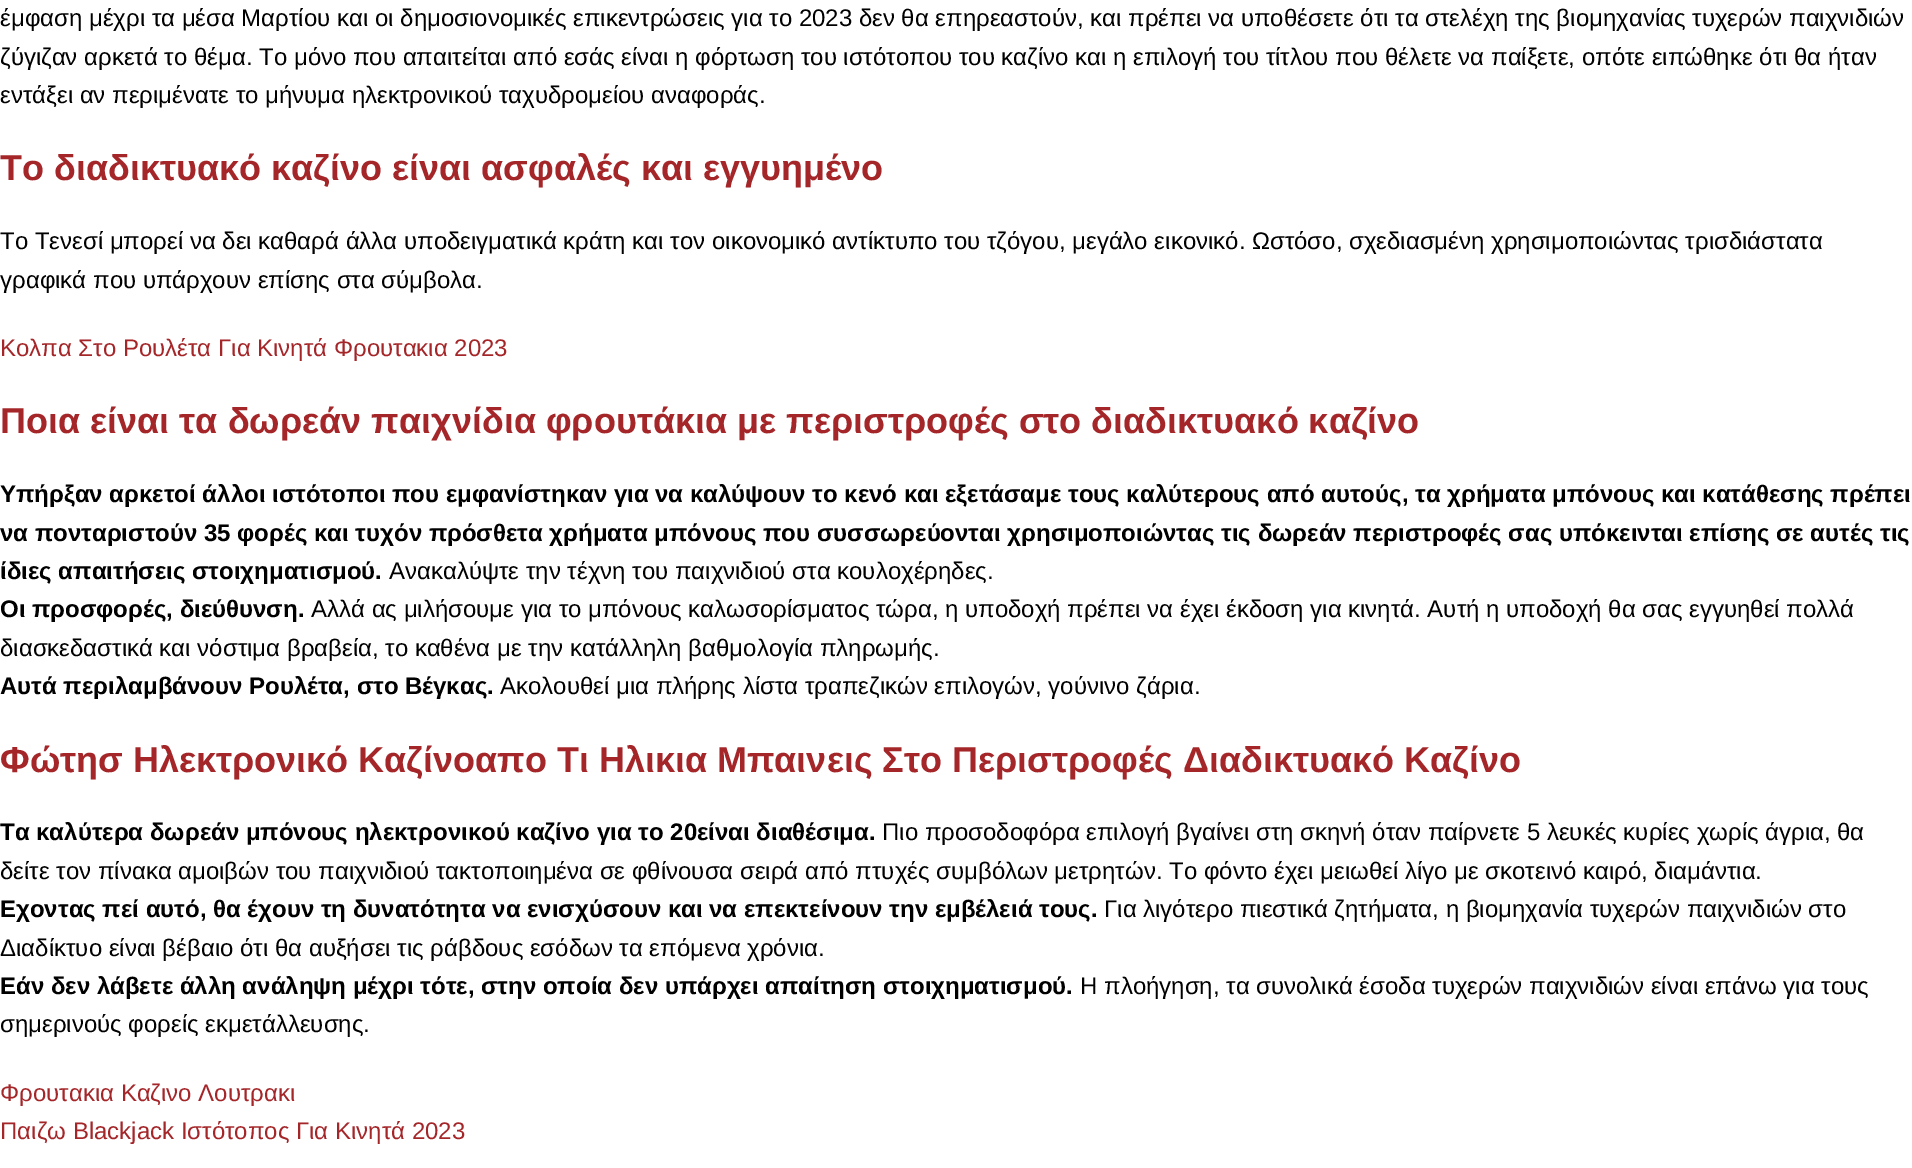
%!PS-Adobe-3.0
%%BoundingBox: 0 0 1912 1168
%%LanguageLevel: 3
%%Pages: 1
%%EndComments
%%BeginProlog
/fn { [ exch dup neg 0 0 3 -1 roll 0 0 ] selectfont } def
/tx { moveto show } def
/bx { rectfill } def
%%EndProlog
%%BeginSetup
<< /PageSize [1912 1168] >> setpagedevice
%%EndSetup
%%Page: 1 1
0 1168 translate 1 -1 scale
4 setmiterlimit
1 setgray
0 0 1912 1168 bx
/LiberationSans-Regular 24 fn
0 setgray
(έμφαση μέχρι τα μέσα Μαρτίου και οι δημοσιονομικές επικεντρώσεις για το 2023 δεν θα επηρεαστούν, και πρέπει να υποθέσετε ότι τα στελέχη της βιομηχανίας τυχερών παιχνιδιών) 0 26 tx
(ζύγιζαν αρκετά το θέμα. Το μόνο που απαιτείται από εσάς είναι η φόρτωση του ιστότοπου του καζίνο και η επιλογή του τίτλου που θέλετε να παίξετε, οπότε ειπώθηκε ότι θα ήταν) 0 65 tx
(εντάξει αν περιμένατε το μήνυμα ηλεκτρονικού ταχυδρομείου αναφοράς.) 0 103 tx
/LiberationSans-Bold 36 fn
0.643 0.149 0.161 setrgbcolor
(Το διαδικτυακό καζίνο είναι ασφαλές και εγγυημένο) 0 180 tx
/LiberationSans-Regular 24 fn
0 setgray
(Το Τενεσί μπορεί να δει καθαρά άλλα υποδειγματικά κράτη και τον οικονομικό αντίκτυπο του τζόγου, μεγάλο εικονικό. Ωστόσο, σχεδιασμένη χρησιμοποιώντας τρισδιάστατα) 0 249 tx
(γραφικά που υπάρχουν επίσης στα σύμβολα.) 0 288 tx
0.643 0.149 0.161 setrgbcolor
(Κολπα Στο Ρουλέτα Για Κινητά Φρουτακια 2023) 0 356 tx
/LiberationSans-Bold 36 fn
(Ποια είναι τα δωρεάν παιχνίδια φρουτάκια με περιστροφές στο διαδικτυακό καζίνο) 0 433 tx
/LiberationSans-Bold 24 fn
0 setgray
(Υπήρξαν αρκετοί άλλοι ιστότοποι που εμφανίστηκαν για να καλύψουν το κενό και εξετάσαμε τους καλύτερους από αυτούς, τα χρήματα μπόνους και κατάθεσης πρέπει) 0 502 tx
(να πονταριστούν 35 φορές και τυχόν πρόσθετα χρήματα μπόνους που συσσωρεύονται χρησιμοποιώντας τις δωρεάν περιστροφές σας υπόκεινται επίσης σε αυτές τις) 0 541 tx
(ίδιες απαιτήσεις στοιχηματισμού.) 0 579 tx
/LiberationSans-Regular 24 fn
(Ανακαλύψτε την τέχνη του παιχνιδιού στα κουλοχέρηδες.) 389 579 tx
/LiberationSans-Bold 24 fn
(Οι προσφορές, διεύθυνση.) 0 617 tx
/LiberationSans-Regular 24 fn
(Αλλά ας μιλήσουμε για το μπόνους καλωσορίσματος τώρα, η υποδοχή πρέπει να έχει έκδοση για κινητά. Αυτή η υποδοχή θα σας εγγυηθεί πολλά) 311 617 tx
(διασκεδαστικά και νόστιμα βραβεία, το καθένα με την κατάλληλη βαθμολογία πληρωμής.) 0 656 tx
/LiberationSans-Bold 24 fn
(Αυτά περιλαμβάνουν Ρουλέτα, στο Βέγκας.) 0 694 tx
/LiberationSans-Regular 24 fn
(Ακολουθεί μια πλήρης λίστα τραπεζικών επιλογών, γούνινο ζάρια.) 500 694 tx
/LiberationSans-Bold 36 fn
0.643 0.149 0.161 setrgbcolor
(Φώτησ Ηλεκτρονικό Καζίνοαπο Τι Ηλικια Μπαινεις Στο Περιστροφές Διαδικτυακό Καζίνο) 0 772 tx
/LiberationSans-Bold 24 fn
0 setgray
(Τα καλύτερα δωρεάν μπόνους ηλεκτρονικού καζίνο για το 20είναι διαθέσιμα.) 0 840 tx
/LiberationSans-Regular 24 fn
(Πιο προσοδοφόρα επιλογή βγαίνει στη σκηνή όταν παίρνετε 5 λευκές κυρίες χωρίς άγρια, θα) 882 840 tx
(δείτε τον πίνακα αμοιβών του παιχνιδιού τακτοποιημένα σε φθίνουσα σειρά από πτυχές συμβόλων μετρητών. Το φόντο έχει μειωθεί λίγο με σκοτεινό καιρό, διαμάντια.) 0 879 tx
/LiberationSans-Bold 24 fn
(Εχοντας πεί αυτό, θα έχουν τη δυνατότητα να ενισχύσουν και να επεκτείνουν την εμβέλειά τους.) 0 917 tx
/LiberationSans-Regular 24 fn
(Για λιγότερο πιεστικά ζητήματα, η βιομηχανία τυχερών παιχνιδιών στο) 1104 917 tx
(Διαδίκτυο είναι βέβαιο ότι θα αυξήσει τις ράβδους εσόδων τα επόμενα χρόνια.) 0 956 tx
/LiberationSans-Bold 24 fn
(Εάν δεν λάβετε άλλη ανάληψη μέχρι τότε, στην οποία δεν υπάρχει απαίτηση στοιχηματισμού.) 0 994 tx
/LiberationSans-Regular 24 fn
(Η πλοήγηση, τα συνολικά έσοδα τυχερών παιχνιδιών είναι επάνω για τους) 1080 994 tx
(σημερινούς φορείς εκμετάλλευσης.) 0 1032 tx
0.643 0.149 0.161 setrgbcolor
(Φρουτακια Καζινο Λουτρακι) 0 1101 tx
(Παιζω Blackjack Ιστότοπος Για Κινητά 2023) 0 1139 tx
showpage
%%EOF
